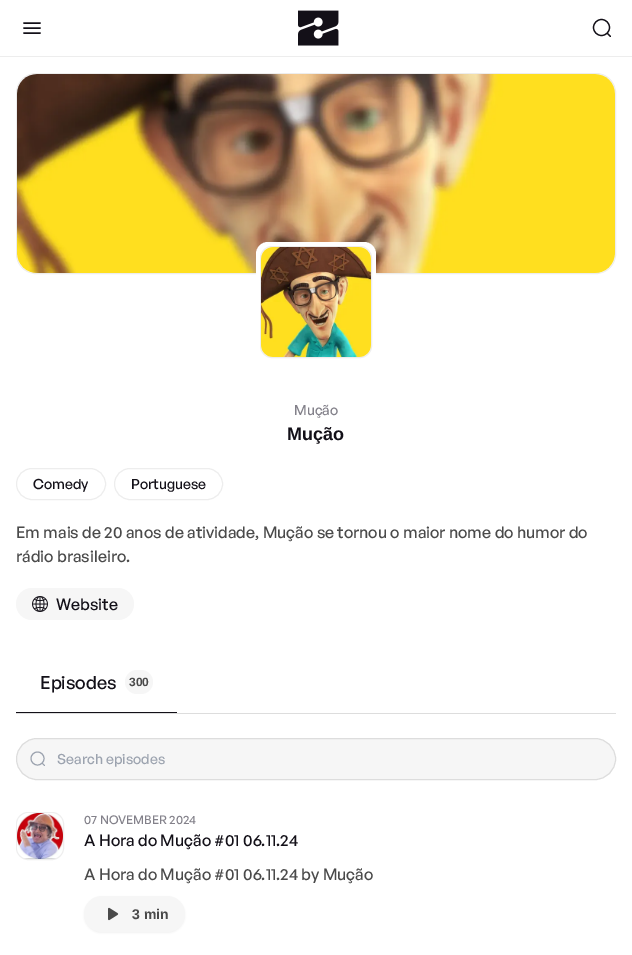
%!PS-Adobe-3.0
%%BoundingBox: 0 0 632 955
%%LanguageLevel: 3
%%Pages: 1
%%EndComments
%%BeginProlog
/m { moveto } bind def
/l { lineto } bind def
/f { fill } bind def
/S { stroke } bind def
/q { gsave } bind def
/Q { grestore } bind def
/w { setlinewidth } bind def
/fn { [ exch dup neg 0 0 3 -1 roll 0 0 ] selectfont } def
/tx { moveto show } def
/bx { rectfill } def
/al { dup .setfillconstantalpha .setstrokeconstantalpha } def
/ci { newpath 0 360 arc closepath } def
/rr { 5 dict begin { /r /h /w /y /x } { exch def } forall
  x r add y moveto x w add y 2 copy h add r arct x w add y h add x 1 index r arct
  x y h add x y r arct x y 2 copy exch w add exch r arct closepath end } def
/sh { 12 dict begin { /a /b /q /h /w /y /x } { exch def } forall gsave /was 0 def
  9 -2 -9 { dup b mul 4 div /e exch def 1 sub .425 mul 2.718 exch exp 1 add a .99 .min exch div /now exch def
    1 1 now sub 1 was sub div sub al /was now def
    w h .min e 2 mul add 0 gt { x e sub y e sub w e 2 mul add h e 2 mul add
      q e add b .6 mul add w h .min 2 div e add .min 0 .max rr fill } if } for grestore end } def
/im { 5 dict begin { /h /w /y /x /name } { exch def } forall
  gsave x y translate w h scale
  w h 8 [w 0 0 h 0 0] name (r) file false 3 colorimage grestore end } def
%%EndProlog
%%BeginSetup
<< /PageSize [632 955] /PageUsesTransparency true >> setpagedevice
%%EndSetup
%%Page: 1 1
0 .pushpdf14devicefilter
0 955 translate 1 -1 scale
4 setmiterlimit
1 setgray
0 0 632 955 bx
0.929 setgray
0 56 632 1 bx
0.075 0.063 0.094 setrgbcolor
1.5 w
1 setlinecap
40 23 m 24 23 l 40 28 m 24 28 l 40 33 m 24 33 l S
(image0.raw) 298 10 41 36 im
1.2 w
0 setlinecap
601.5 27.5 8 ci S
1 setlinecap
607.5 33.5 m 610.5 36.5 l S
0.965 setgray
16.5 73.5 599 200 19.5 rr q f Q
0.929 setgray
1 w
0 setlinecap
S
(image1.raw) 17 74 598 199 im
1 setgray
256 242 120 120 12 rr f
0.965 setgray
260.5 246.5 111 111 11.5 rr q f Q
0.929 setgray
S
(image2.raw) 261 247 110 110 im
/GeneralSans-Medium 14 fn
0.514 0.506 0.541 setrgbcolor
(Mução) 294 415 tx
/LiberationSans-Bold 18 fn
0.075 0.063 0.094 setrgbcolor
(Mução) 287 440 tx
0.929 setgray
16.5 468.5 89 31 15.5 rr S
/GeneralSans-Medium 14 fn
0.075 0.063 0.094 setrgbcolor
(Comedy) 33 489 tx
0.929 setgray
114.5 468.5 108 31 15.5 rr S
0.075 0.063 0.094 setrgbcolor
(Portuguese) 131 489 tx
/GeneralSans-Medium 16 fn
0.29 setgray
(Em mais de 20 anos de atividade, Mução se tornou o maior nome do humor do) 16 538 tx
(rádio brasileiro.) 16 562 tx
0.965 setgray
16 588 118 32 16 rr f
(image3.raw) 32 596 16 16 im
0.075 0.063 0.094 setrgbcolor
(Website) 56 610 tx
0.867 setgray
16 713 600 1 bx
0.075 0.063 0.094 setrgbcolor
16 712 161 1 bx
/GeneralSans-Medium 18 fn
(Episodes) 40 689 tx
0.965 setgray
125 670 28 24 12 rr f
/LiberationSans-Bold 12 fn
0.29 setgray
(300) 129 686 tx
0.965 setgray
16.5 738.5 599 41 20.5 rr q f Q
0.867 setgray
S
0.612 0.639 0.686 setrgbcolor
37.5 758.5 6.5 ci S
1 setlinecap
42.5 763.5 m 44.5 765.5 l S
/GeneralSans-Medium 14 fn
(Search episodes) 57 764 tx
0.965 setgray
16.5 812.5 47 47 11.5 rr q f Q
0.929 setgray
0 setlinecap
S
(image4.raw) 17 813 46 46 im
/GeneralSans-Medium 12 fn
0.514 0.506 0.541 setrgbcolor
(07 NOVEMBER 2024) 84 824 tx
/GeneralSans-Medium 16 fn
0.075 0.063 0.094 setrgbcolor
(A Hora do Mução #01 06.11.24) 84 846 tx
0.29 setgray
(A Hora do Mução #01 06.11.24 by Mução) 84 880 tx
0 setgray
84 897 101 36 18 1 0.05 sh
0.965 setgray
84 896 101 36 18 rr f
(image5.raw) 108 907 11 14 im
/LiberationSans-Bold 14 fn
0.29 setgray
(3 min) 132 919 tx
.poppdf14devicefilter showpage
%%EOF
